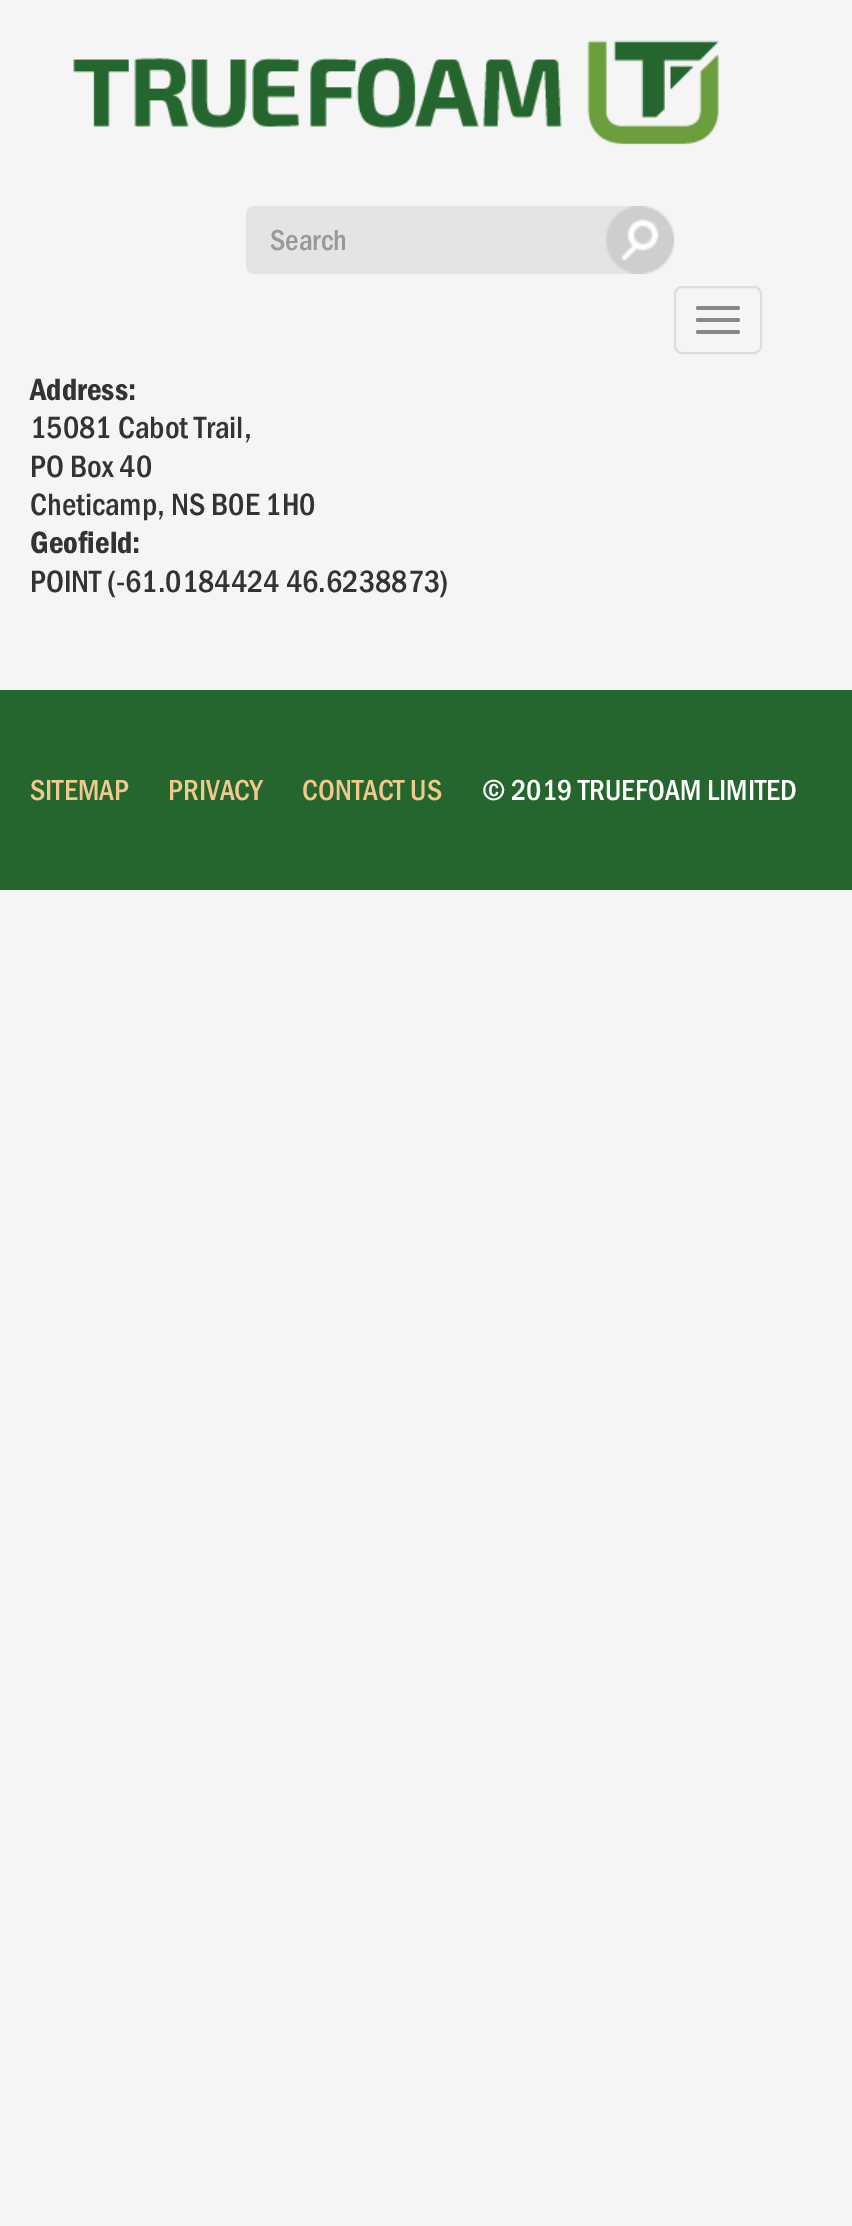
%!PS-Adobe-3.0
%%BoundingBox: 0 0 852 2226
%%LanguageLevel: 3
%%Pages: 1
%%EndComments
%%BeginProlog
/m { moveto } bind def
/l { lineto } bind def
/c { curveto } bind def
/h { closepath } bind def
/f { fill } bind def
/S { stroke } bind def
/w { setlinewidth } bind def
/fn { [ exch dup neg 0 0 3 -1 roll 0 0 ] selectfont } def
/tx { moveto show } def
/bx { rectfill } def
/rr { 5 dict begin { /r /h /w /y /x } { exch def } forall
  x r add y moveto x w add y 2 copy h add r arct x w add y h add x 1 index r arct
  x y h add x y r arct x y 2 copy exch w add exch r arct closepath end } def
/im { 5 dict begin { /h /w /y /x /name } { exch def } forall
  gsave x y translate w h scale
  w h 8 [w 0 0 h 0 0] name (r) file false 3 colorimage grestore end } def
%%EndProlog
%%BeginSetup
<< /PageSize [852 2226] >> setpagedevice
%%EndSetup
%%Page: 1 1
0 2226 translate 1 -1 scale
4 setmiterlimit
0.961 setgray
0 0 852 2226 bx
(image0.raw) 73 40 646 105 im
0.894 setgray
254 206 m 636 206 l 636 274 l 254 274 l 249.5 274 246 270.5 246 266 c 246 214 l 246 209.5 249.5 206 254 206 c h f
/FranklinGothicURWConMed-Regular 30 fn
0.6 setgray
(Search) 270 250 tx
(image1.raw) 606 206 68 68 im
0.867 setgray
2 w
675 287 86 66 7 rr S
0.533 setgray
696 306 44 4 2 rr f
696 318 44 4 2 rr f
696 330 44 4 2 rr f
/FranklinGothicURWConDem-Regular 32 fn
0.2 setgray
(Address:) 30 400 tx
/FranklinGothicURWConMed-Regular 32 fn
(15081 Cabot Trail,) 30 438 tx
(PO Box 40) 30 477 tx
(Cheticamp, NS B0E 1H0) 30 515 tx
/FranklinGothicURWConDem-Regular 32 fn
(Geofield:) 30 553 tx
/FranklinGothicURWConMed-Regular 32 fn
(POINT \(-61.0184424 46.6238873\)) 30 592 tx
0.141 0.4 0.176 setrgbcolor
0 690 852 200 bx
/FranklinGothicURWConMed-Regular 30 fn
0.937 0.792 0.549 setrgbcolor
(SITEMAP) 30 800 tx
(PRIVACY) 168 800 tx
(CONTACT US) 302 800 tx
1 setgray
(© 2019 TRUEFOAM LIMITED) 482 800 tx
showpage
%%EOF
